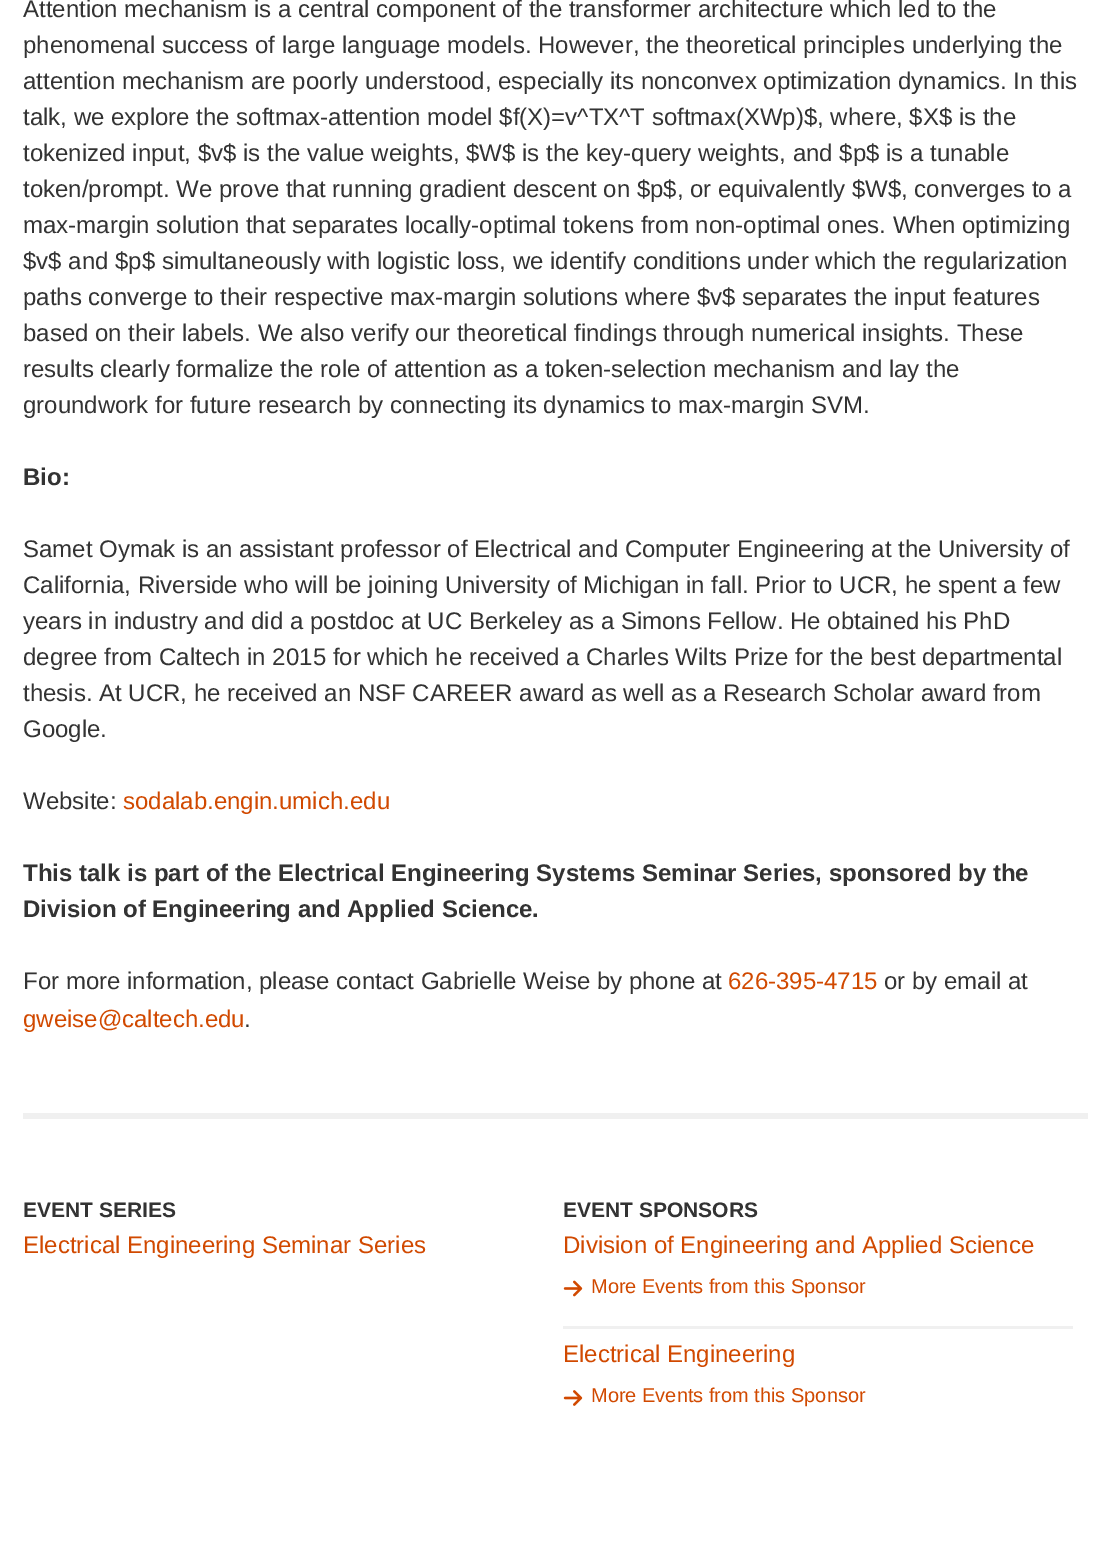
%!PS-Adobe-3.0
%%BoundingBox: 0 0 1110 1564
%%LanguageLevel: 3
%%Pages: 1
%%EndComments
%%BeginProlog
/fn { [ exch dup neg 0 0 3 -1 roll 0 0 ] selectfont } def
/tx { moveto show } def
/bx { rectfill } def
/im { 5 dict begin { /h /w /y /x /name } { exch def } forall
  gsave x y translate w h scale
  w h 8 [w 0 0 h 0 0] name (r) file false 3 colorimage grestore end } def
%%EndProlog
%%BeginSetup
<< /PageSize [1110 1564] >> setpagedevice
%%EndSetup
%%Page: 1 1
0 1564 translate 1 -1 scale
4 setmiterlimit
1 setgray
0 0 1110 1564 bx
/LiberationSans-Regular 24 fn
0.2 setgray
(Attention mechanism is a central component of the transformer architecture which led to the) 23 17 tx
(phenomenal success of large language models. However, the theoretical principles underlying the) 23 53 tx
(attention mechanism are poorly understood, especially its nonconvex optimization dynamics. In this) 23 89 tx
(talk, we explore the softmax-attention model $f\(X\)=v^TX^T softmax\(XWp\)$, where, $X$ is the) 23 125 tx
(tokenized input, $v$ is the value weights, $W$ is the key-query weights, and $p$ is a tunable) 23 161 tx
(token/prompt. We prove that running gradient descent on $p$, or equivalently $W$, converges to a) 23 197 tx
(max-margin solution that separates locally-optimal tokens from non-optimal ones. When optimizing) 23 233 tx
($v$ and $p$ simultaneously with logistic loss, we identify conditions under which the regularization) 23 269 tx
(paths converge to their respective max-margin solutions where $v$ separates the input features) 23 305 tx
(based on their labels. We also verify our theoretical findings through numerical insights. These) 23 341 tx
(results clearly formalize the role of attention as a token-selection mechanism and lay the) 23 377 tx
(groundwork for future research by connecting its dynamics to max-margin SVM.) 23 413 tx
/LiberationSans-Bold 24 fn
(Bio:) 23 485 tx
/LiberationSans-Regular 24 fn
(Samet Oymak is an assistant professor of Electrical and Computer Engineering at the University of) 23 557 tx
(California, Riverside who will be joining University of Michigan in fall. Prior to UCR, he spent a few) 23 593 tx
(years in industry and did a postdoc at UC Berkeley as a Simons Fellow. He obtained his PhD) 23 629 tx
(degree from Caltech in 2015 for which he received a Charles Wilts Prize for the best departmental) 23 665 tx
(thesis. At UCR, he received an NSF CAREER award as well as a Research Scholar award from) 23 701 tx
(Google.) 23 737 tx
(Website:) 23 809 tx
0.82 0.286 0 setrgbcolor
(sodalab.engin.umich.edu) 123 809 tx
/LiberationSans-Bold 24 fn
0.2 setgray
(This talk is part of the Electrical Engineering Systems Seminar Series, sponsored by the) 23 881 tx
(Division of Engineering and Applied Science.) 23 917 tx
/LiberationSans-Regular 24 fn
(For more information, please contact Gabrielle Weise by phone at) 23 989 tx
0.82 0.286 0 setrgbcolor
(626-395-4715) 728 989 tx
0.2 setgray
(or by email at) 884 989 tx
0.82 0.286 0 setrgbcolor
(gweise@caltech.edu) 23 1027 tx
0.2 setgray
(.) 244 1027 tx
0.941 setgray
23 1113 1065 6 bx
/LiberationSans-Bold 21 fn
0.2 setgray
(EVENT SERIES) 23 1217 tx
/LiberationSans-Regular 24 fn
0.82 0.286 0 setrgbcolor
(Electrical Engineering Seminar Series) 23 1253 tx
/LiberationSans-Bold 21 fn
0.2 setgray
(EVENT SPONSORS) 563 1217 tx
0.941 setgray
563 1326 510 3 bx
/LiberationSans-Regular 24 fn
0.82 0.286 0 setrgbcolor
(Division of Engineering and Applied Science) 563 1253 tx
(image0.raw) 563 1280 20 17 im
/LiberationSans-Regular 20 fn
(More Events from this Sponsor) 591 1293 tx
/LiberationSans-Regular 24 fn
(Electrical Engineering) 563 1362 tx
(image1.raw) 563 1390 20 16 im
/LiberationSans-Regular 20 fn
(More Events from this Sponsor) 591 1402 tx
showpage
%%EOF
